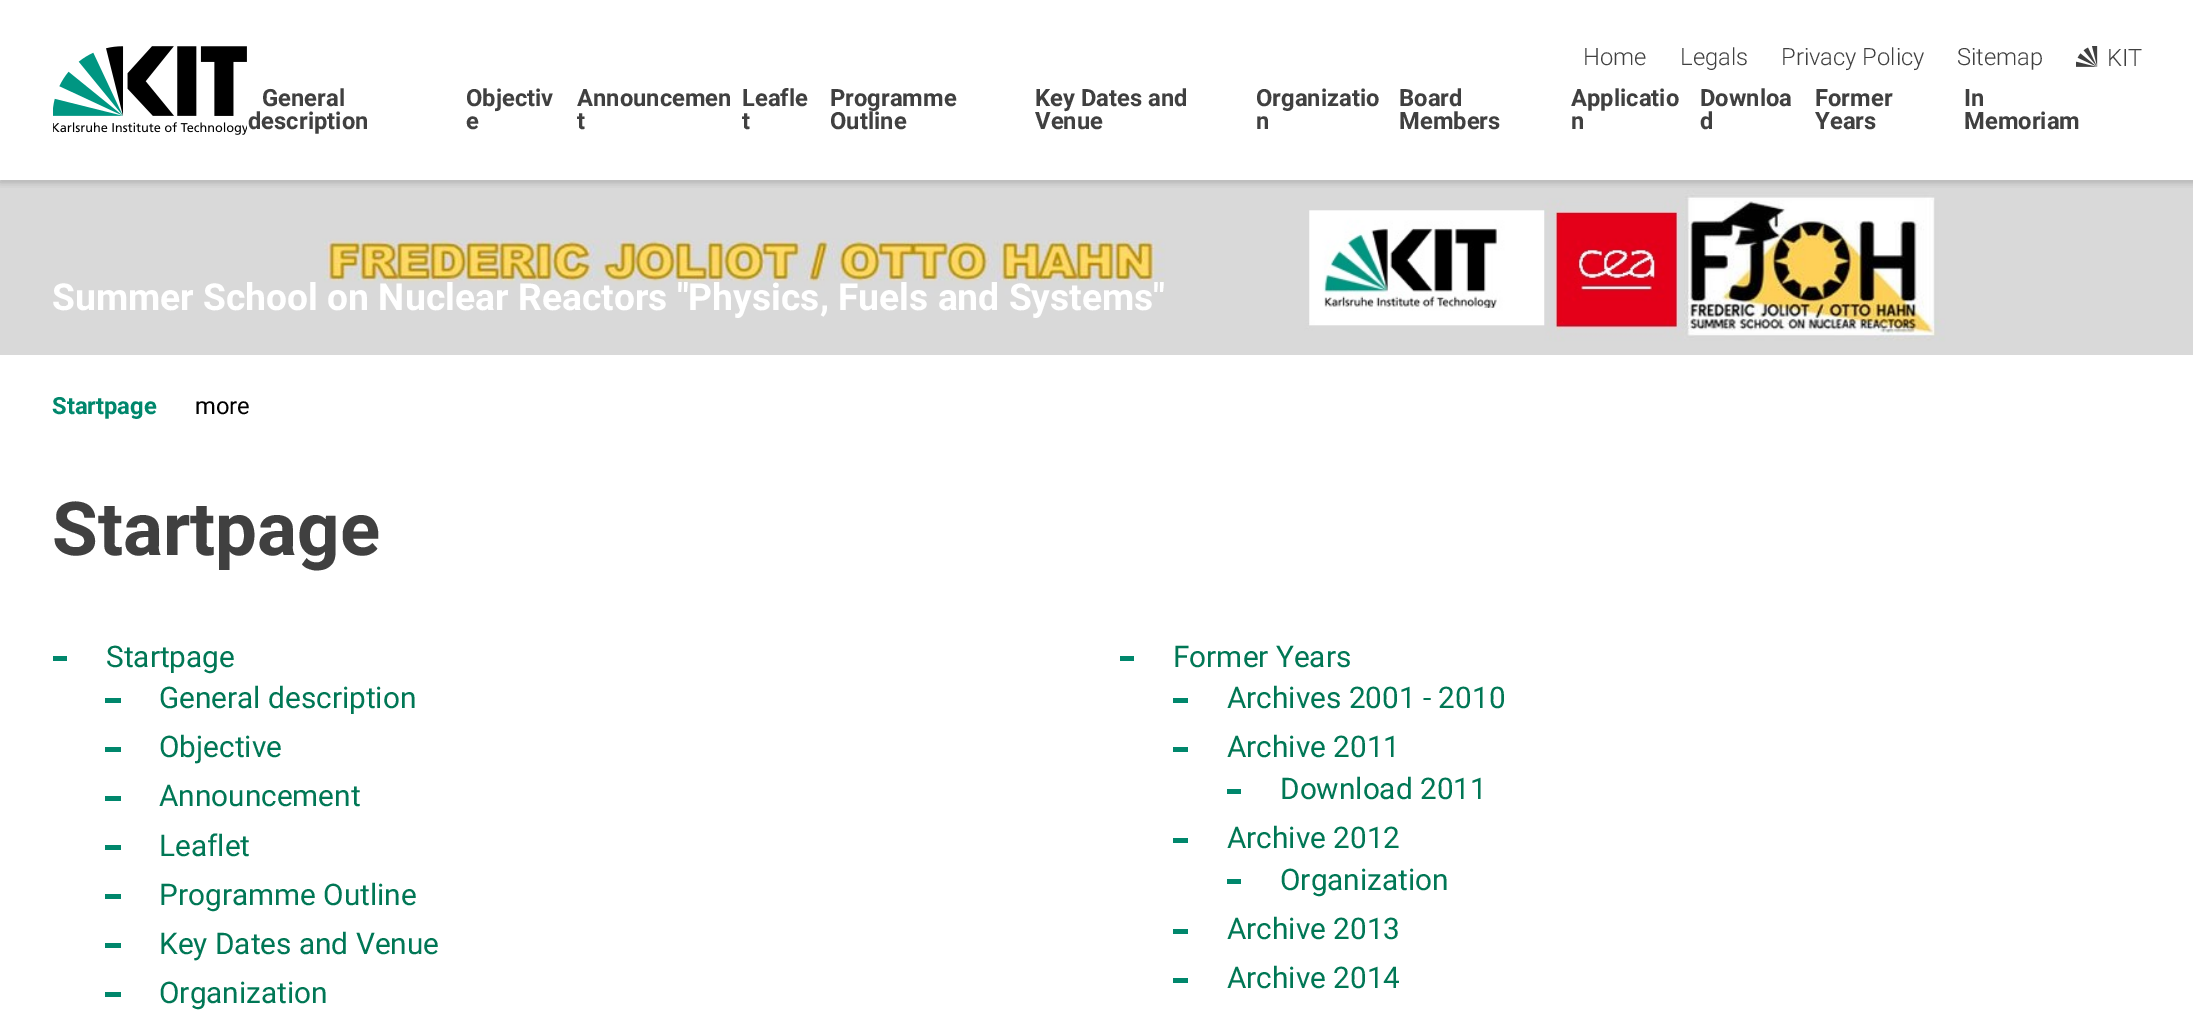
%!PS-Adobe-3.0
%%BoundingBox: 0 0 2193 1026
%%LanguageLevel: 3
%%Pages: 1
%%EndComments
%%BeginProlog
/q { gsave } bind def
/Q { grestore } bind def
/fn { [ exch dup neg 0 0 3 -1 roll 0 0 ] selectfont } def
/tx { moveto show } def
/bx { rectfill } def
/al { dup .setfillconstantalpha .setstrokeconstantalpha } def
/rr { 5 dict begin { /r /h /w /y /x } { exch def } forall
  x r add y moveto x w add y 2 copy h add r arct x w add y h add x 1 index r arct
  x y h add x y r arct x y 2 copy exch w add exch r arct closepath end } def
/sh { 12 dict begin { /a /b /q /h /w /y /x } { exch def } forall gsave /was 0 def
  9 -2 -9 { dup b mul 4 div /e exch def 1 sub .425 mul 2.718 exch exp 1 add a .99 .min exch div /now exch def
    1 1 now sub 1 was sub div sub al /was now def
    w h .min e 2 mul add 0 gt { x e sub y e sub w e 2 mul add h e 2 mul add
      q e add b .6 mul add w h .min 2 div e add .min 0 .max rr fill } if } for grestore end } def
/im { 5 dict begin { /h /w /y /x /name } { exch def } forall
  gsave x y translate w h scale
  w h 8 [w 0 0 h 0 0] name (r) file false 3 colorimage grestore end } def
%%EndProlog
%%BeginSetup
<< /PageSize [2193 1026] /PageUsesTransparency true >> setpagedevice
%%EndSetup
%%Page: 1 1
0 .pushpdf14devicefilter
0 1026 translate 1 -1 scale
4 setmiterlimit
1 setgray
0 0 2193 1026 bx
(image2.raw) 0 180 2193 175 im
q
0 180 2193 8 rectclip
0.251 setgray
0 0 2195 180 0 4.5 0.5 sh
Q
(image0.raw) 53 46 194 89 im
/Roboto-Light 23.75 fn
0.251 setgray
(Home) 1583 65 tx
(Legals) 1680 65 tx
(Privacy Policy) 1781 65 tx
(Sitemap) 1957 65 tx
(image1.raw) 2076 46 22 21 im
(KIT) 2107 66 tx
/Roboto-Bold 23.75 fn
(General) 262 106 tx
(description) 248 129 tx
(Objectiv) 466 106 tx
(e) 466 129 tx
(Announcemen) 577 106 tx
(t) 577 129 tx
(Leafle) 742 106 tx
(t) 742 129 tx
(Programme) 830 106 tx
(Outline) 830 129 tx
(Key Dates and) 1035 106 tx
(Venue) 1035 129 tx
(Organizatio) 1256 106 tx
(n) 1256 129 tx
(Board) 1399 106 tx
(Members) 1399 129 tx
(Applicatio) 1571 106 tx
(n) 1571 129 tx
(Downloa) 1700 106 tx
(d) 1700 129 tx
(Former) 1815 106 tx
(Years) 1815 129 tx
(In) 1964 106 tx
(Memoriam) 1964 129 tx
/Roboto-Bold 37.2 fn
1 setgray
(Summer School on Nuclear Reactors "Physics, Fuels and Systems") 52 310 tx
/Roboto-Bold 23.75 fn
0 0.529 0.424 setrgbcolor
(Startpage) 52 414 tx
/Roboto-Regular 23.75 fn
0 setgray
(more) 195 414 tx
/Roboto-Bold 74.5 fn
0.251 setgray
(Startpage) 52 555 tx
0 0.529 0.424 setrgbcolor
53 656 14 5 bx
/Roboto-Regular 29.75 fn
0 0.467 0.333 setrgbcolor
(Startpage) 106 667 tx
0 0.529 0.424 setrgbcolor
105 698 16 5 bx
0 0.467 0.333 setrgbcolor
(General description) 159 708 tx
0 0.529 0.424 setrgbcolor
105 747 16 5 bx
0 0.467 0.333 setrgbcolor
(Objective) 159 757 tx
0 0.529 0.424 setrgbcolor
105 796 16 5 bx
0 0.467 0.333 setrgbcolor
(Announcement) 159 806 tx
0 0.529 0.424 setrgbcolor
105 845 16 5 bx
0 0.467 0.333 setrgbcolor
(Leaflet) 159 856 tx
0 0.529 0.424 setrgbcolor
105 894 16 5 bx
0 0.467 0.333 setrgbcolor
(Programme Outline) 159 905 tx
0 0.529 0.424 setrgbcolor
105 943 16 5 bx
0 0.467 0.333 setrgbcolor
(Key Dates and Venue) 159 954 tx
0 0.529 0.424 setrgbcolor
105 992 16 5 bx
0 0.467 0.333 setrgbcolor
(Organization) 159 1003 tx
0 0.529 0.424 setrgbcolor
1120 656 14 5 bx
0 0.467 0.333 setrgbcolor
(Former Years) 1173 667 tx
0 0.529 0.424 setrgbcolor
1173 698 15 5 bx
0 0.467 0.333 setrgbcolor
(Archives 2001 - 2010) 1227 708 tx
0 0.529 0.424 setrgbcolor
1173 747 15 5 bx
0 0.467 0.333 setrgbcolor
(Archive 2011) 1227 757 tx
0 0.529 0.424 setrgbcolor
1227 789 14 5 bx
0 0.467 0.333 setrgbcolor
(Download 2011) 1280 799 tx
0 0.529 0.424 setrgbcolor
1173 838 15 5 bx
0 0.467 0.333 setrgbcolor
(Archive 2012) 1227 848 tx
0 0.529 0.424 setrgbcolor
1227 879 14 5 bx
0 0.467 0.333 setrgbcolor
(Organization) 1280 890 tx
0 0.529 0.424 setrgbcolor
1173 929 15 5 bx
0 0.467 0.333 setrgbcolor
(Archive 2013) 1227 939 tx
0 0.529 0.424 setrgbcolor
1173 978 15 5 bx
0 0.467 0.333 setrgbcolor
(Archive 2014) 1227 988 tx
.poppdf14devicefilter showpage
%%EOF
